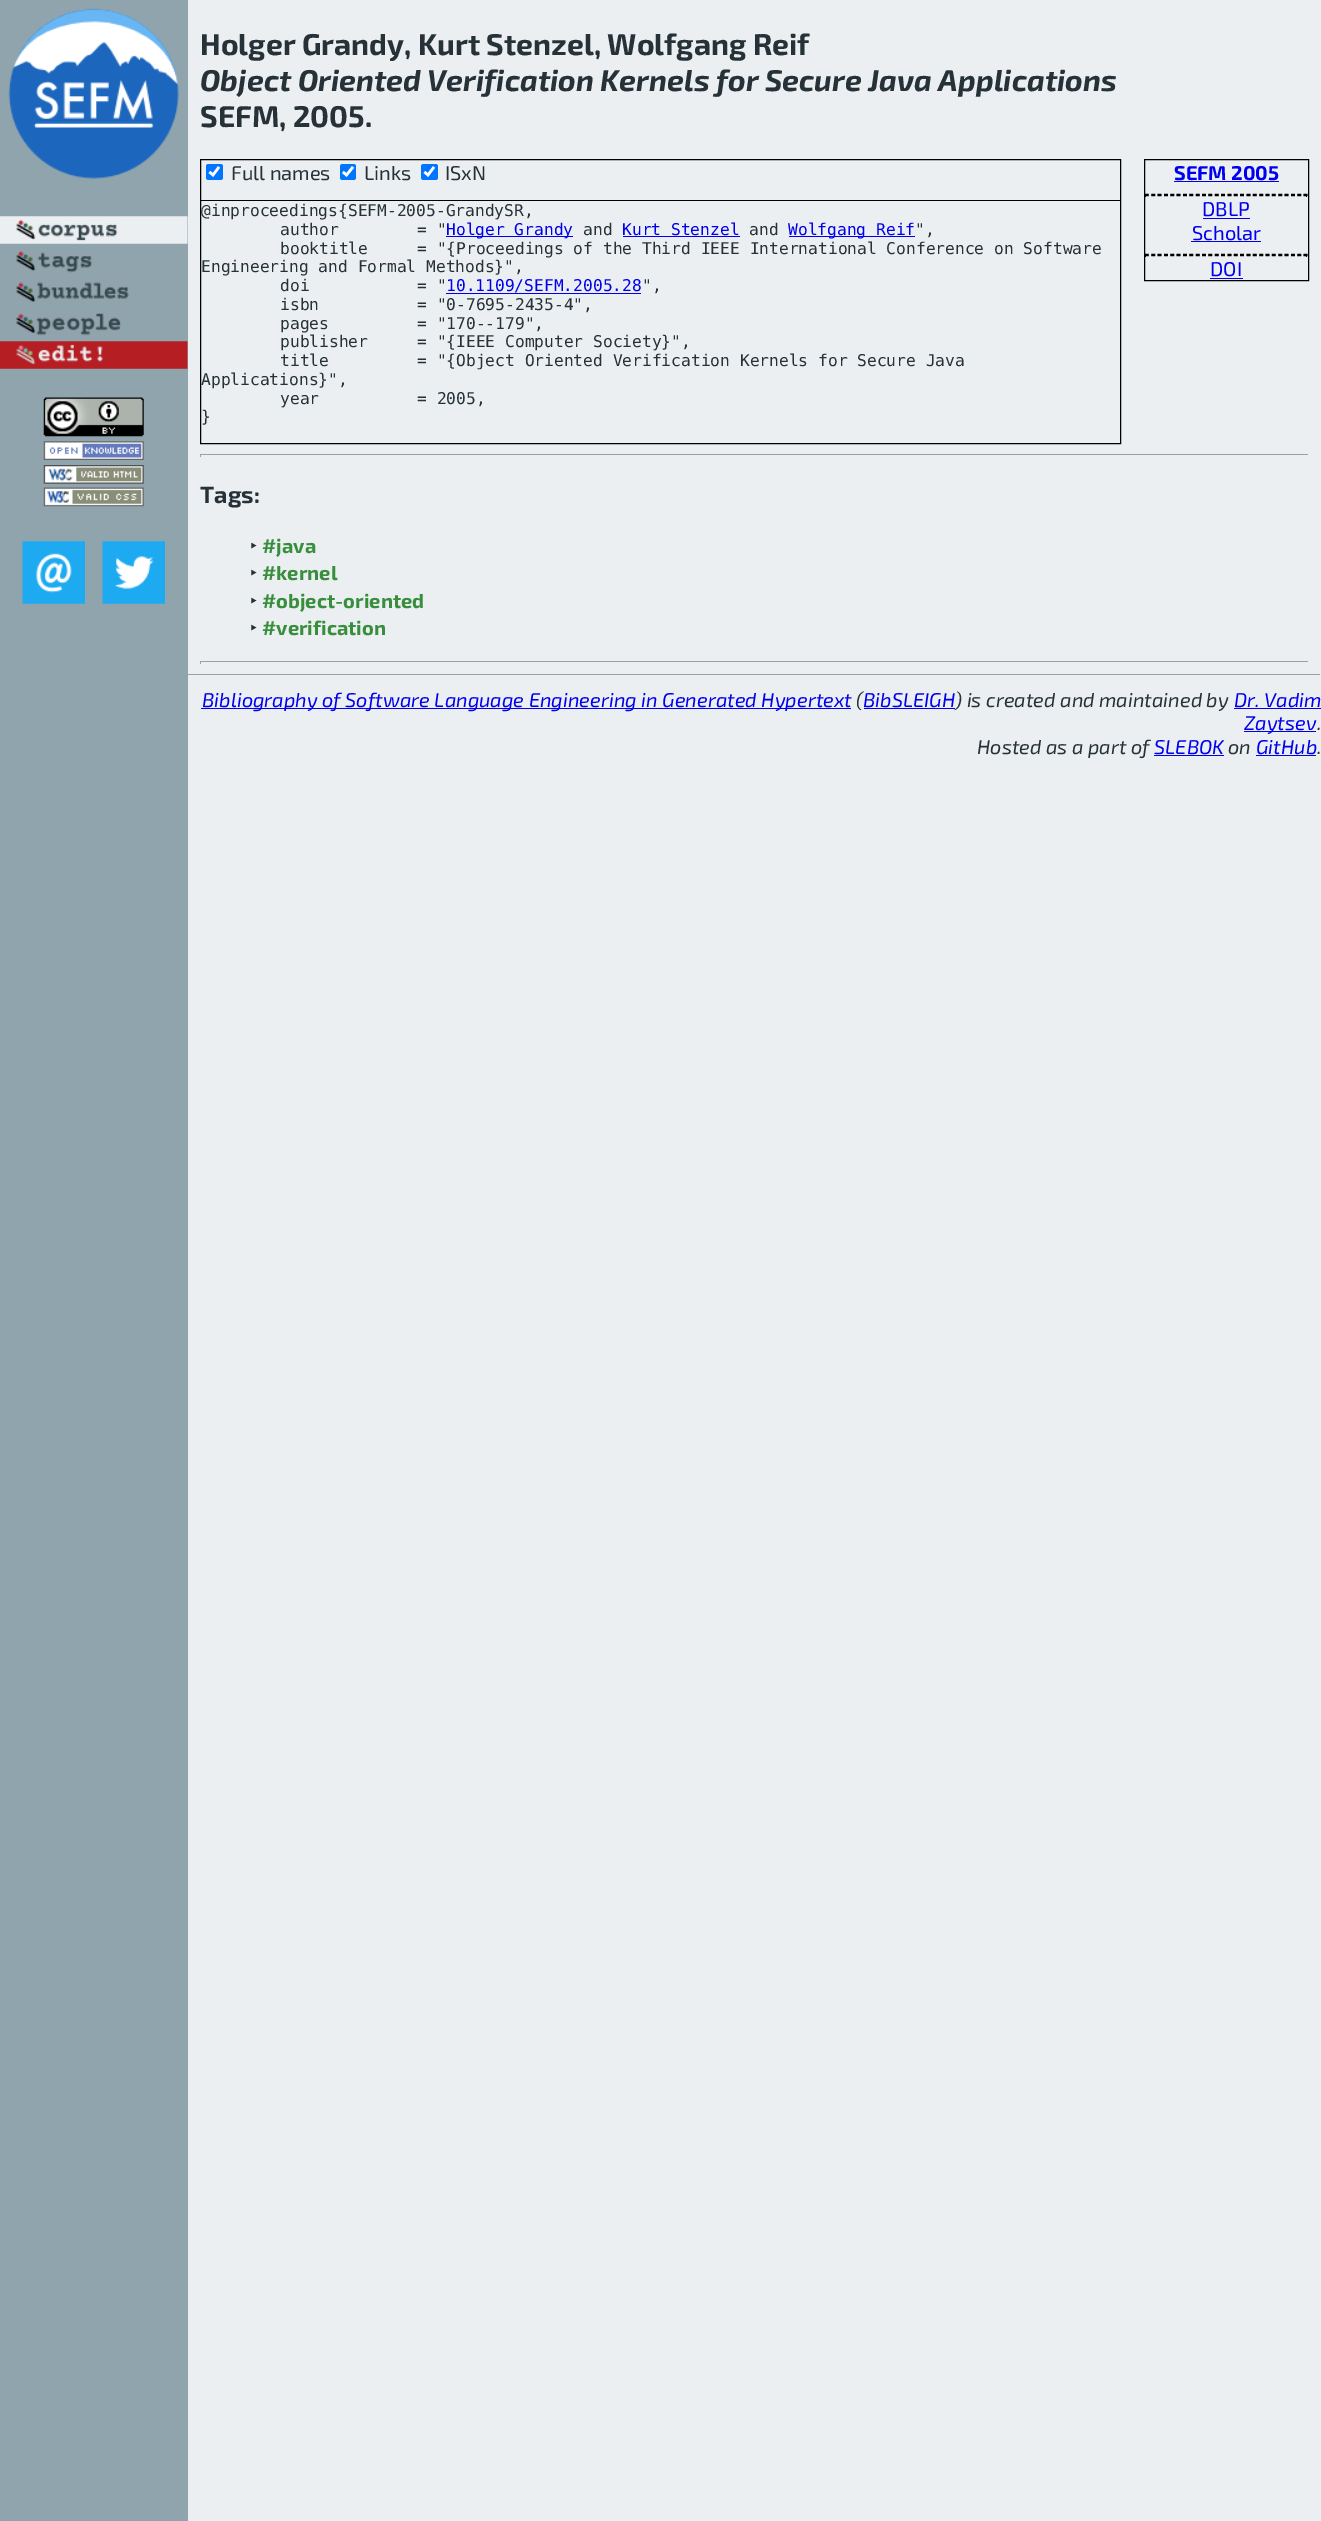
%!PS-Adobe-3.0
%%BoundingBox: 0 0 1321 2521
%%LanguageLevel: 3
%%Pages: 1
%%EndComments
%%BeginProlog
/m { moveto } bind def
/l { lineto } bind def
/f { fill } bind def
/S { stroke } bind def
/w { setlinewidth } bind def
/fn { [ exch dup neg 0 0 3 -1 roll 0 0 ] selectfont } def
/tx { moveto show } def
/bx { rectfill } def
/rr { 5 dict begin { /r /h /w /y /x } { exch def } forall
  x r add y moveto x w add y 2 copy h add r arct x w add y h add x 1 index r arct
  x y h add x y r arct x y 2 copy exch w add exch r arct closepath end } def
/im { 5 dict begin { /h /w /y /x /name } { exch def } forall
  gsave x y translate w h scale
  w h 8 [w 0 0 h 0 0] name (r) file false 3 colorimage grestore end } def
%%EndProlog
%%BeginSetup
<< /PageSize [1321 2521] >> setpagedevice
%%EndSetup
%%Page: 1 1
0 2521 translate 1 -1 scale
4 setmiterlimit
0.925 0.937 0.945 setrgbcolor
0 0 1321 2521 bx
0.565 0.643 0.682 setrgbcolor
0 0 188 2521 bx
(image0.raw) 8 8 171 171 im
(image1.raw) 0 216 188 28 im
(image2.raw) 16 251 76 22 im
(image3.raw) 16 282 113 21 im
(image4.raw) 16 313 105 23 im
(image5.raw) 0 341 188 28 im
(image6.raw) 43 397 101 40 im
(image7.raw) 43 441 101 19 im
(image8.raw) 43 465 101 19 im
(image9.raw) 43 487 101 20 im
(image10.raw) 22 541 63 63 im
(image11.raw) 102 541 63 63 im
/Exo2-Bold 30 fn
0.149 0.196 0.22 setrgbcolor
(Holger Grandy, Kurt Stenzel, Wolfgang Reif) 200 55 tx
/Exo2-BoldItalic 30 fn
(Object Oriented Verification Kernels for Secure Java Applications) 200 91 tx
/Exo2-Bold 30 fn
(SEFM, 2005.) 200 127 tx
0 setgray
200.5 159.5 920 284 rectstroke
0 0.459 1 setrgbcolor
206 164 17 16 2.5 rr f
1 setgray
2.6 w
209.5 172 m 213 175 l 219 167 l S
/Exo2-Regular 20 fn
0.149 0.196 0.22 setrgbcolor
(Full names) 231 180 tx
0 0.459 1 setrgbcolor
340 164 16 16 2.5 rr f
1 setgray
343 172 m 346.5 175 l 353 167 l S
0.149 0.196 0.22 setrgbcolor
(Links) 364 180 tx
0 0.459 1 setrgbcolor
421 164 17 16 2.5 rr f
1 setgray
424.5 172 m 428 175 l 434 167 l S
0.149 0.196 0.22 setrgbcolor
(ISxN) 445 180 tx
0 setgray
201 200 919 1 bx
/DejaVuSansMono-Regular 16.25 fn
0.149 0.196 0.22 setrgbcolor
(@inproceedings{SEFM-2005-GrandySR,) 201 216 tx
(author        = ") 280 235 tx
0 0 0.933 setrgbcolor
446 236 127 1 bx
(Holger Grandy) 446 235 tx
0.149 0.196 0.22 setrgbcolor
(and) 583 235 tx
0 0 0.933 setrgbcolor
(Kurt Stenzel) 622 235 tx
623 236 117 1 bx
0.149 0.196 0.22 setrgbcolor
(and) 749 235 tx
0 0 0.933 setrgbcolor
789 236 126 1 bx
(Wolfgang Reif) 788 235 tx
0.149 0.196 0.22 setrgbcolor
(",) 915 235 tx
(booktitle     = "{Proceedings of the Third IEEE International Conference on Software) 280 254 tx
(Engineering and Formal Methods}",) 201 272 tx
(doi           = ") 280 291 tx
0 0 0.933 setrgbcolor
(10.1109/SEFM.2005.28) 446 291 tx
446 293 195 1 bx
0.149 0.196 0.22 setrgbcolor
(",) 642 291 tx
(isbn          = "0-7695-2435-4",) 280 310 tx
(pages         = "170--179",) 280 329 tx
(publisher     = "{IEEE Computer Society}",) 280 347 tx
(title         = "{Object Oriented Verification Kernels for Secure Java) 280 366 tx
(Applications}",) 201 385 tx
(year          = 2005,) 280 404 tx
(}) 201 422 tx
0 setgray
1 w
1144.5 159.5 164 121 rectstroke
/Exo2-Bold 20 fn
0 0 0.933 setrgbcolor
(SEFM 2005) 1174 180 tx
1174 181 105 1 bx
0 setgray
1.2 w
[3.75 2.6] 0 setdash
1145 194.5 m 1307.5 194.5 l S
1306 194 1 3 bx
1145 195.5 m 1307.5 195.5 l S
1145 194 1 3 bx
/Exo2-Regular 20 fn
0 0 0.933 setrgbcolor
(DBLP) 1202 216 tx
1203 218 47 1 bx
(Scholar) 1192 240 tx
1191 241 70 1 bx
0 setgray
1145 254.5 m 1307.5 254.5 l S
1306 254 1 3 bx
1145 255.5 m 1307.5 255.5 l S
1145 254 1 3 bx
0 0 0.933 setrgbcolor
(DOI) 1210 276 tx
1210 278 33 1 bx
0.624 setgray
200 454 1109 1 bx
0.933 setgray
1308 454 1 3 bx
200 455 1109 1 bx
0.624 setgray
200 454 1 3 bx
/Exo2-Bold 23.5 fn
0.149 0.196 0.22 setrgbcolor
(Tags:) 200 503 tx
/NotoSans-Regular 20 fn
(‣) 250 553 tx
/Exo2-Bold 20 fn
0.22 0.557 0.235 setrgbcolor
(#java) 262 553 tx
/NotoSans-Regular 20 fn
0.149 0.196 0.22 setrgbcolor
(‣) 250 580 tx
/Exo2-Bold 20 fn
0.22 0.557 0.235 setrgbcolor
(#kernel) 262 580 tx
/NotoSans-Regular 20 fn
0.149 0.196 0.22 setrgbcolor
(‣) 250 608 tx
/Exo2-Bold 20 fn
0.22 0.557 0.235 setrgbcolor
(#object-oriented) 262 608 tx
/NotoSans-Regular 20 fn
0.149 0.196 0.22 setrgbcolor
(‣) 250 635 tx
/Exo2-Bold 20 fn
0.22 0.557 0.235 setrgbcolor
(#verification) 262 635 tx
0.624 setgray
200 661 1109 1 bx
0.933 setgray
1308 661 1 3 bx
200 663 1109 1 bx
0.624 setgray
200 661 1 3 bx
188 674 1133 1 bx
0.933 setgray
1320 674 1 3 bx
188 675 1133 1 bx
0 0 0.933 setrgbcolor
201 708 650 1 bx
/Exo2-Italic 20 fn
(Bibliography of Software Language Engineering in Generated Hypertext) 202 707 tx
0.149 0.196 0.22 setrgbcolor
(\() 856 707 tx
0 0 0.933 setrgbcolor
(BibSLEIGH) 863 707 tx
864 708 91 1 bx
0.149 0.196 0.22 setrgbcolor
(\) is created and maintained by) 955 707 tx
0 0 0.933 setrgbcolor
(Dr. Vadim) 1234 707 tx
1234 708 87 1 bx
1244 731 72 1 bx
(Zaytsev) 1244 730 tx
0.149 0.196 0.22 setrgbcolor
(.) 1317 730 tx
(Hosted as a part of) 977 754 tx
0 0 0.933 setrgbcolor
1154 755 70 1 bx
(SLEBOK) 1154 754 tx
0.149 0.196 0.22 setrgbcolor
(on) 1228 754 tx
0 0 0.933 setrgbcolor
(GitHub) 1256 754 tx
0.149 0.196 0.22 setrgbcolor
(.) 1317 754 tx
0 0 0.933 setrgbcolor
1256 755 60 1 bx
showpage
%%EOF
